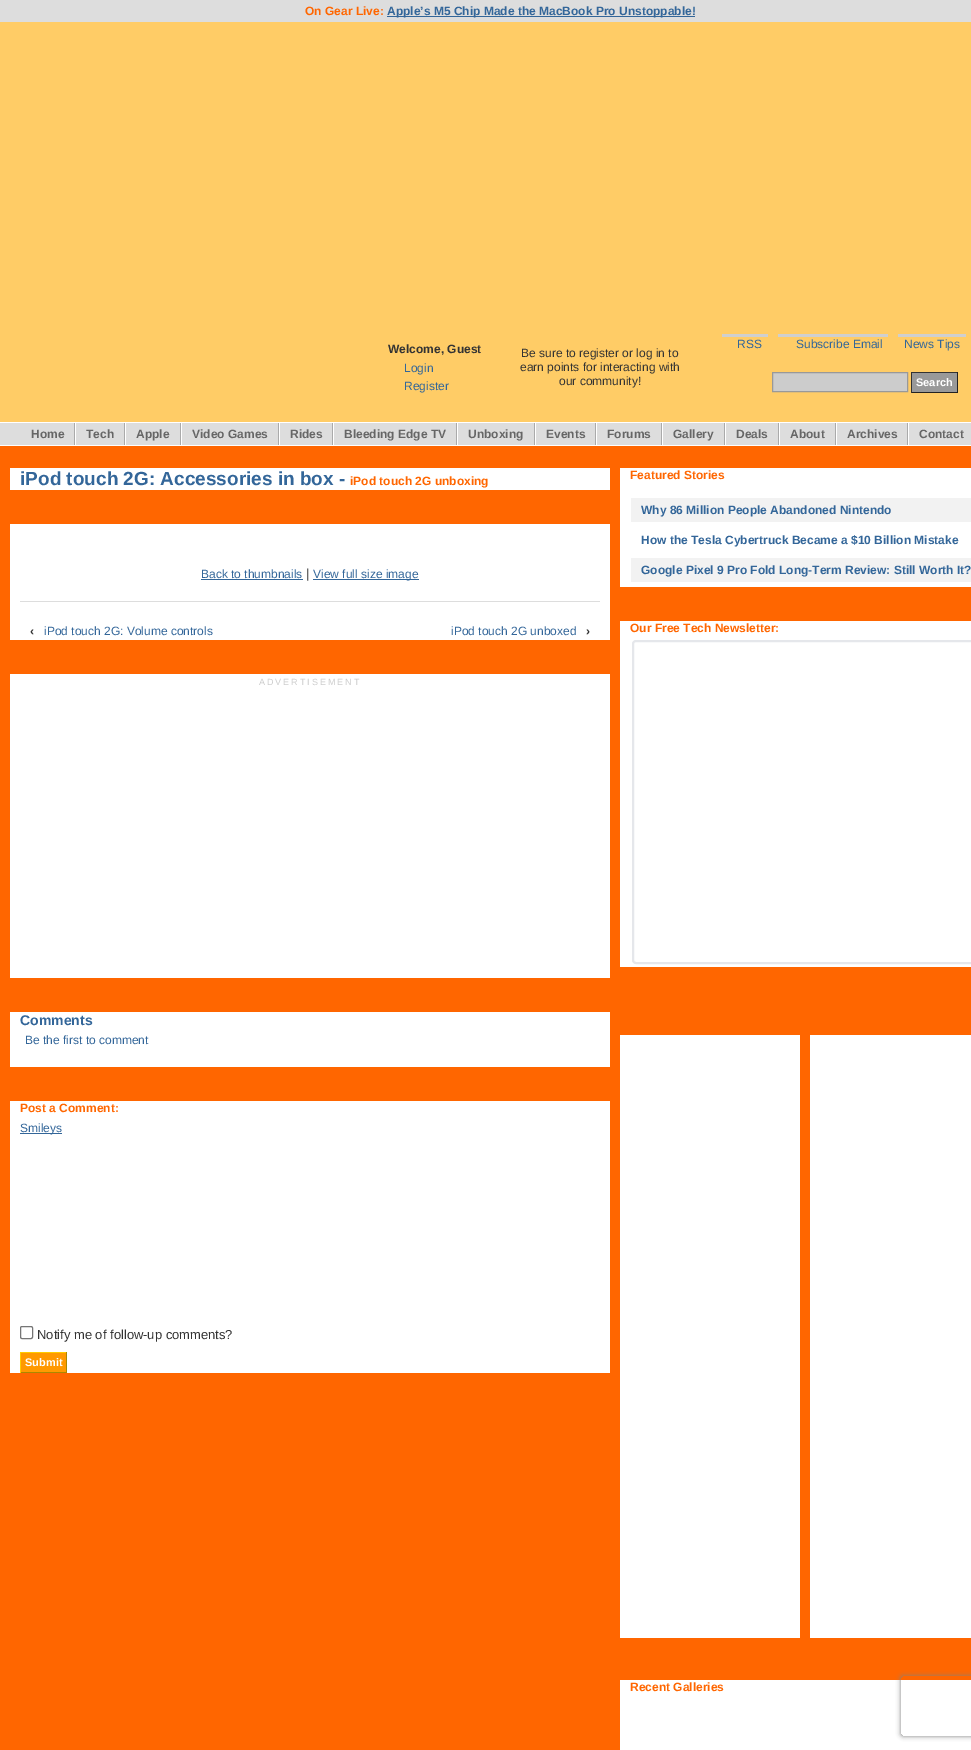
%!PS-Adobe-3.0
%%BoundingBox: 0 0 971 1750
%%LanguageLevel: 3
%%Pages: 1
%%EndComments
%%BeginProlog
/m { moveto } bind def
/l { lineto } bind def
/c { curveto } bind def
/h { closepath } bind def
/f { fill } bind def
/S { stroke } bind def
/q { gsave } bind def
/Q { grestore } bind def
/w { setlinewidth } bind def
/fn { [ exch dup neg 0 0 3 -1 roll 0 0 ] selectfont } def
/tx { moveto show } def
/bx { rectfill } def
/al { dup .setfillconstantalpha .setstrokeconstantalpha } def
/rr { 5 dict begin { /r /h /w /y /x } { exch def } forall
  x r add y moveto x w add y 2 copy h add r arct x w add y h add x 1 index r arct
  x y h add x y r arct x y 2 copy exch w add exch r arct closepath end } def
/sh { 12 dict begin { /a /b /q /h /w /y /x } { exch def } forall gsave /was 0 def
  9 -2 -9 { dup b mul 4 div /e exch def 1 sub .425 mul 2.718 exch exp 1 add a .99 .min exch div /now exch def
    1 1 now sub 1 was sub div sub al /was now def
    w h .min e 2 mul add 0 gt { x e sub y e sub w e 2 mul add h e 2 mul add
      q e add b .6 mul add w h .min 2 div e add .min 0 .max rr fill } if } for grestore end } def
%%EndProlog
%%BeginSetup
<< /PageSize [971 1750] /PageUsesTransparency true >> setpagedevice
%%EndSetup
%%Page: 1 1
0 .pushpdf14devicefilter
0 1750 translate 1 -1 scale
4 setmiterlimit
1 0.8 0.4 setrgbcolor
0 0 971 1750 bx
0.867 setgray
0 0 971 22 bx
/LiberationSans-Bold 12 fn
1 0.4 0 setrgbcolor
(On Gear Live:) 305 15 tx
0.2 0.4 0.6 setrgbcolor
387 16 308 1 bx
(Apple’s M5 Chip Made the MacBook Pro Unstoppable!) 387 15 tx
0.2 setgray
(Welcome, Guest) 388 353 tx
/LiberationSans-Regular 12 fn
(Be sure to register or log in to) 521 357 tx
(earn points for interacting with) 520 371 tx
(our community!) 559 385 tx
0.2 0.4 0.6 setrgbcolor
(Login) 404 372 tx
(Register) 404 390 tx
0.812 setgray
722 334 46 3 bx
0.2 0.4 0.6 setrgbcolor
(RSS) 737 348 tx
0.812 setgray
778 334 110 3 bx
0.2 0.4 0.6 setrgbcolor
(Subscribe Email) 796 348 tx
0.812 setgray
898 334 68 3 bx
0.2 0.4 0.6 setrgbcolor
(News Tips) 904 348 tx
0.8 setgray
772.5 372.5 m 907.5 372.5 l 907.5 391.5 l 772.5 391.5 l h q f Q
0.6 setgray
S
912 373 45 19 bx
0.2 setgray
911 372 47 1 bx
0.133 setgray
957 372 1 21 bx
911 392 47 1 bx
0.2 setgray
911 372 1 21 bx
/LiberationSans-Bold 11 fn
1 setgray
(Search) 916 386 tx
0.867 setgray
0 423 971 22 bx
1 setgray
0 422 971 1 bx
0 445 971 1 bx
0.667 setgray
74 423 1 22 bx
/LiberationSans-Bold 12 fn
0.4 setgray
(Home) 31 438 tx
0.667 setgray
124 423 1 22 bx
1 setgray
75 423 1 22 bx
0.4 setgray
(Tech) 86 438 tx
0.667 setgray
180 423 1 22 bx
1 setgray
125 423 1 22 bx
0.4 setgray
(Apple) 136 438 tx
0.667 setgray
278 423 1 22 bx
1 setgray
181 423 1 22 bx
0.4 setgray
(Video Games) 192 438 tx
0.667 setgray
332 423 1 22 bx
1 setgray
279 423 1 22 bx
0.4 setgray
(Rides) 290 438 tx
0.667 setgray
456 423 1 22 bx
1 setgray
333 423 1 22 bx
0.4 setgray
(Bleeding Edge TV) 344 438 tx
0.667 setgray
534 423 1 22 bx
1 setgray
457 423 1 22 bx
0.4 setgray
(Unboxing) 468 438 tx
0.667 setgray
595 423 1 22 bx
1 setgray
535 423 1 22 bx
0.4 setgray
(Events) 546 438 tx
0.667 setgray
661 423 1 22 bx
1 setgray
596 423 1 22 bx
0.4 setgray
(Forums) 607 438 tx
0.667 setgray
724 423 1 22 bx
1 setgray
662 423 1 22 bx
0.4 setgray
(Gallery) 673 438 tx
0.667 setgray
778 423 1 22 bx
1 setgray
725 423 1 22 bx
0.4 setgray
(Deals) 736 438 tx
0.667 setgray
835 423 1 22 bx
1 setgray
779 423 1 22 bx
0.4 setgray
(About) 790 438 tx
0.667 setgray
907 423 1 22 bx
1 setgray
836 423 1 22 bx
0.4 setgray
(Archives) 847 438 tx
1 setgray
908 423 1 22 bx
0.4 setgray
(Contact) 919 438 tx
1 0.4 0 setrgbcolor
0 446 971 1304 bx
1 setgray
10 468 600 22 bx
/LiberationSans-Bold 19 fn
0.2 0.4 0.6 setrgbcolor
(iPod touch 2G: Accessories in box -) 20 485 tx
/LiberationSans-Bold 12 fn
1 0.4 0 setrgbcolor
(iPod touch 2G unboxing) 350 485 tx
1 setgray
10 524 600 116 bx
/LiberationSans-Regular 12 fn
0.2 0.4 0.6 setrgbcolor
(Back to thumbnails) 201 578 tx
201 579 102 1 bx
/LiberationSans-Regular 13 fn
0.2 setgray
(|) 306 578 tx
0.2 0.4 0.6 setrgbcolor
313 579 106 1 bx
/LiberationSans-Regular 12 fn
(View full size image) 313 578 tx
0.867 setgray
20 601 580 1 bx
/LiberationSans-Bold 12 fn
0.2 setgray
(‹) 30 635 tx
/LiberationSans-Regular 12 fn
0.2 0.4 0.6 setrgbcolor
(iPod touch 2G: Volume controls) 44 635 tx
(iPod touch 2G unboxed) 451 635 tx
/LiberationSans-Bold 12 fn
0.2 setgray
(›) 586 635 tx
1 setgray
10 674 600 304 bx
/LiberationSans-Regular 9 fn
0.8 setgray
259 685 m 2 0 (ADVERTISEMENT) ashow
1 setgray
10 1012 600 55 bx
/LiberationSans-Bold 14 fn
0.2 0.4 0.6 setrgbcolor
(Comments) 20 1025 tx
/LiberationSans-Regular 12 fn
(Be the first to comment) 25 1044 tx
1 setgray
10 1101 600 272 bx
/LiberationSans-Bold 12 fn
1 0.4 0 setrgbcolor
(Post a Comment:) 20 1112 tx
0.2 0.4 0.6 setrgbcolor
20 1133 42 1 bx
/LiberationSans-Regular 12 fn
(Smileys) 20 1132 tx
0.463 setgray
20.5 1326.5 12 12 1.5 rr S
/LiberationSans-Regular 13 fn
0.2 setgray
(Notify me of follow-up comments?) 37 1339 tx
1 0.6 0 setrgbcolor
21 1353 45 19 bx
1 0.8 0 setrgbcolor
20 1352 47 1 bx
0.667 0.533 0 setrgbcolor
66 1352 1 21 bx
20 1372 47 1 bx
1 0.8 0 setrgbcolor
20 1352 1 21 bx
/LiberationSans-Bold 11 fn
1 setgray
(Submit) 25 1366 tx
620 468 351 119 bx
/LiberationSans-Bold 12 fn
1 0.4 0 setrgbcolor
(Featured Stories) 630 479 tx
0.949 setgray
631 498 340 24 bx
0.2 0.4 0.6 setrgbcolor
(Why 86 Million People Abandoned Nintendo) 641 514 tx
(How the Tesla Cybertruck Became a $10 Billion Mistake) 641 544 tx
0.949 setgray
631 558 340 24 bx
0.2 0.4 0.6 setrgbcolor
(Google Pixel 9 Pro Fold Long-Term Review: Still Worth It?) 641 574 tx
1 setgray
620 621 351 346 bx
1 0.4 0 setrgbcolor
(Our Free Tech Newsletter:) 630 632 tx
0.898 0.906 0.922 setrgbcolor
2 w
633 641 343 322 3 rr S
1 setgray
620 1035 180 603 bx
810 1035 161 603 bx
620 1680 351 70 bx
1 0.4 0 setrgbcolor
(Recent Galleries) 630 1691 tx
q
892 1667 m 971 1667 l 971 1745 l 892 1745 l h 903 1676 m 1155 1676 l 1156 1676 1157 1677 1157 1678 c 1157 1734 l 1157 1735 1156 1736 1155 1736 c 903 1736 l 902 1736 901 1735 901 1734 c 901 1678 l 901 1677 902 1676 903 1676 c h eoclip newpath
0.502 setgray
901 1676 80 60 2 2.5 1 sh
Q
.poppdf14devicefilter showpage
%%EOF
